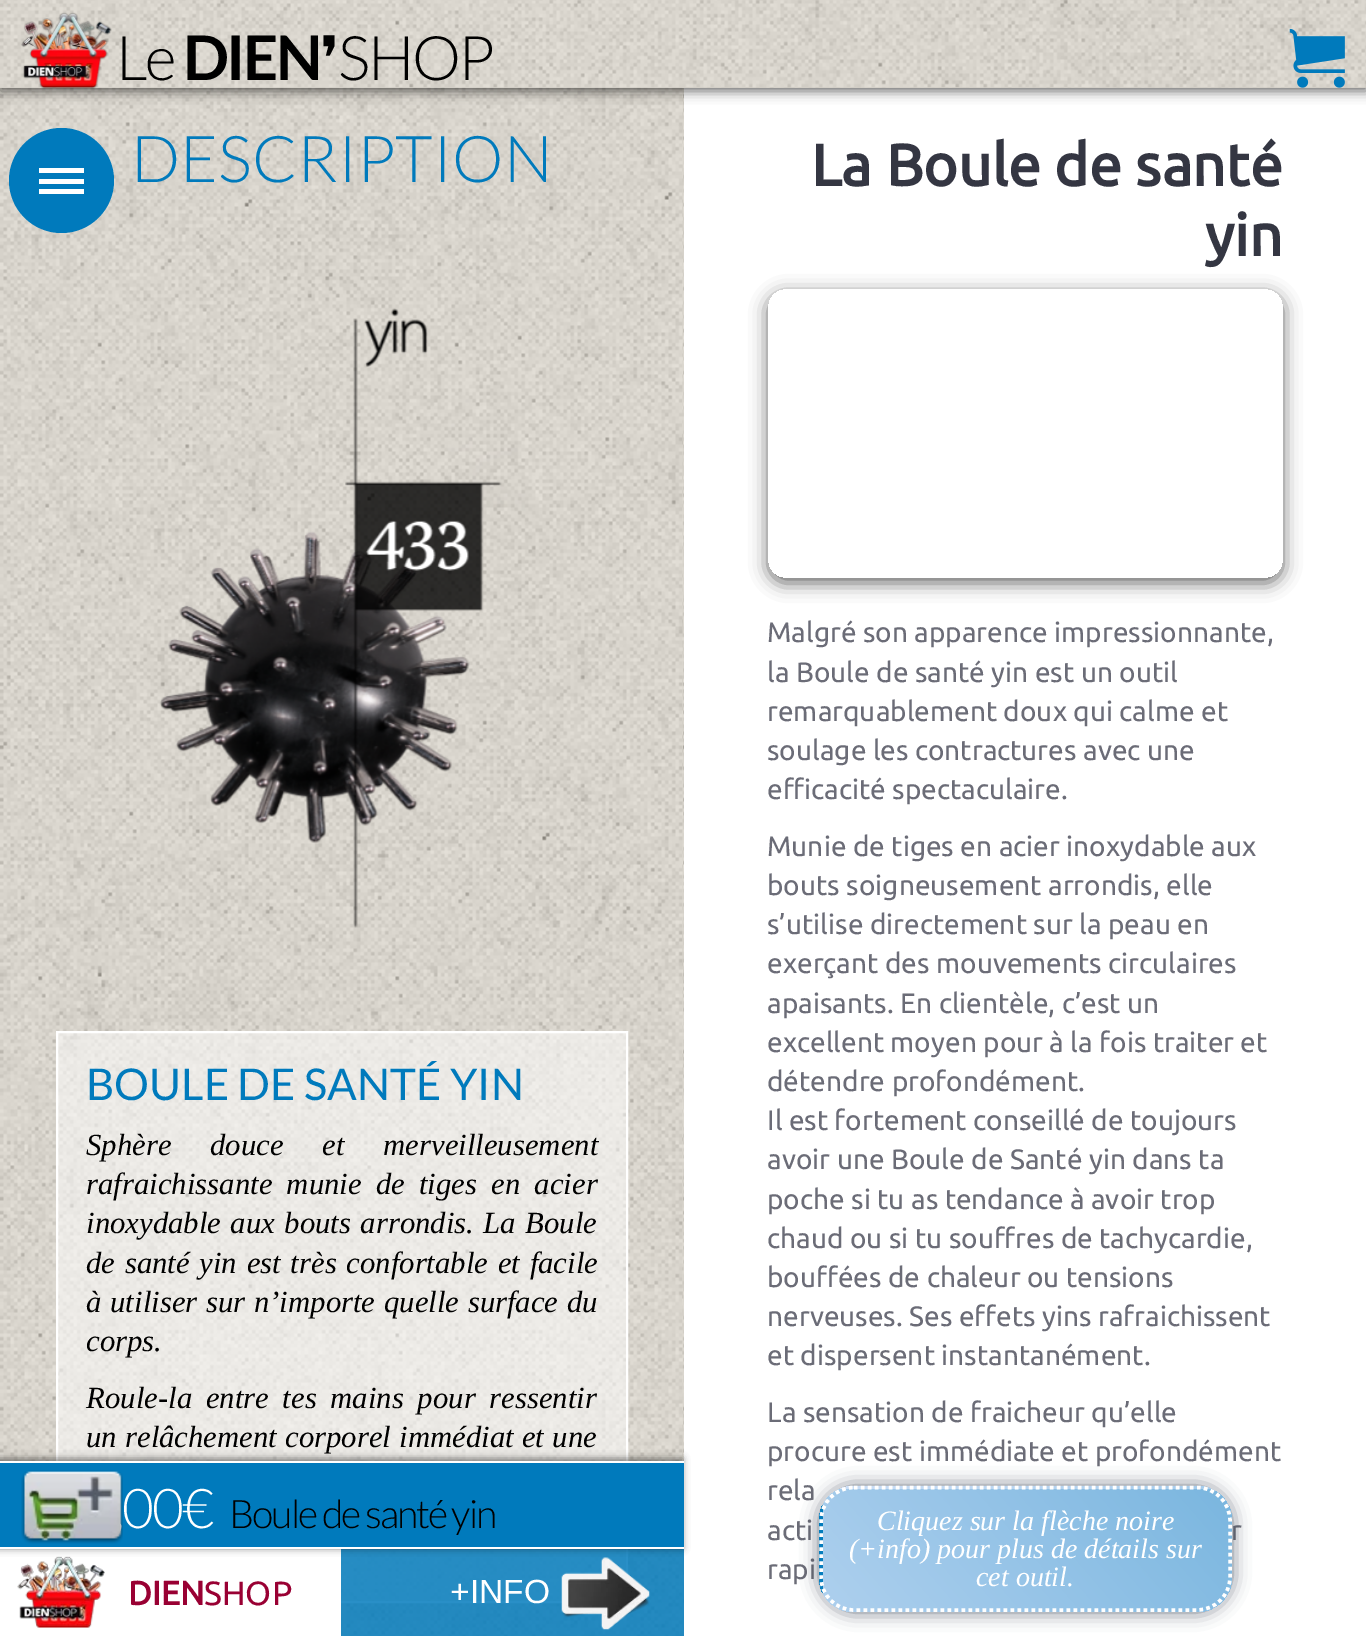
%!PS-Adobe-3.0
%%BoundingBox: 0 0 1366 1636
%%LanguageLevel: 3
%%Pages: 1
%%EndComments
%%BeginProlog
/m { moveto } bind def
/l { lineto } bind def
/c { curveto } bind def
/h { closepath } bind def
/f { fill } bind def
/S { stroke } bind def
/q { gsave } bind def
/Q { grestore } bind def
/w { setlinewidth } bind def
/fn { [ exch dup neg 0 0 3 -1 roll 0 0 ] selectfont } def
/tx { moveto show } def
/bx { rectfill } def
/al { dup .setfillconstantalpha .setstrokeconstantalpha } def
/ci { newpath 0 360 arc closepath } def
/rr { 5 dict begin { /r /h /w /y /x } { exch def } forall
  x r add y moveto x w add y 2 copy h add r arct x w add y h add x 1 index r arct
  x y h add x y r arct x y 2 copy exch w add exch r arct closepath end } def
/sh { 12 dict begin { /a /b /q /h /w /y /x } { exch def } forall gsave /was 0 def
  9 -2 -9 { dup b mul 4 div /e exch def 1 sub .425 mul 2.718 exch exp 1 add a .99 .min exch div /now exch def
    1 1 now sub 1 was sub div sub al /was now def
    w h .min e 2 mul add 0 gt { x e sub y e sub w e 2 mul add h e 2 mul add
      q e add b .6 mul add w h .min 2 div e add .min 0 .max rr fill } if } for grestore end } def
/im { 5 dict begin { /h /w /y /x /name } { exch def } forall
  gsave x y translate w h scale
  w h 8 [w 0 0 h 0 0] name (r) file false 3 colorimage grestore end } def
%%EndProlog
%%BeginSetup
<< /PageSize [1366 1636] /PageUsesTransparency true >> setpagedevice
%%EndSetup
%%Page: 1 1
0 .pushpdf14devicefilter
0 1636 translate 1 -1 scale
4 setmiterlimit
1 setgray
0 0 1366 1636 bx
(image3.raw) 0 88 683 1548 im
0 0.478 0.737 setrgbcolor
61.5 180.5 52.5 ci f
1 setgray
39 179 45 5 bx
39 168 45 5 bx
39 189 45 5 bx
(image5.raw) 683 88 1 1548 im
0 setgray
0 4 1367 87 0 6 0.6 sh
0.808 0.796 0.765 setrgbcolor
0 87 1366 1 bx
(image0.raw) 0 0 1366 88 im
(image1.raw) 21 12 91 77 im
/Lato-Light 61.5 fn
0 setgray
116 80 m -2.5 0 (Le) ashow
/Lato-Bold 61.5 fn
183 80 m -2.5 0 (DIEN) ashow
/DejaVuSans-Regular 61.5 fn
320 80 m -2.5 0 (❜) ashow
/Lato-Light 61.5 fn
338 80 m -2.5 0 (SHOP) ashow
(image2.raw) 1289 28 56 60 im
/Lato-Light 64.5 fn
0 0.478 0.737 setrgbcolor
(DESCRIPTION) 131 182 tx
(image4.raw) 159 308 343 620 im
0.5 al
1 setgray
57 1032 m 627 1032 l 627 1602 l 57 1602 l h f
1 al
2 w
57 1032 m 627 1032 l 627 1602 l 57 1602 l h S
/Lato-Regular 43.75 fn
0 0.478 0.737 setrgbcolor
(BOULE DE SANTÉ YIN) 86 1100 tx
/LiberationSerif-Italic 30.75 fn
0 setgray
86 1155 m 31 0 32 (Sphère douce et merveilleusement) widthshow
86 1194 m 6.5 0 32 (rafraichissante munie de tiges en acier) widthshow
86 1233 m 1.75 0 32 (inoxydable aux bouts arrondis. La Boule) widthshow
86 1273 m 2 0 32 (de santé yin est très confortable et facile) widthshow
86 1312 m 1 0 32 (à utiliser sur n’importe quelle surface du) widthshow
(corps.) 86 1351 tx
86 1408 m 6 0 32 (Roule-la entre tes mains pour ressentir) widthshow
86 1447 m 0.5 0 32 (un relâchement corporel immédiat et une) widthshow
/Ubuntu-Bold 58.75 fn
0.204 0.212 0.259 setrgbcolor
(La Boule de santé) 811 186 tx
(yin) 1205 256 tx
q
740 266 m 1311 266 l 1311 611 l 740 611 l h 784 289 m 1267 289 l 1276 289 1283 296 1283 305 c 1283 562 l 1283 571 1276 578 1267 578 c 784 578 l 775 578 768 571 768 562 c 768 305 l 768 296 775 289 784 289 c h eoclip newpath
0 setgray
768 294 515 289 16 9 0.6 sh
Q
/Ubuntu-Regular 28 fn
0.42 0.424 0.467 setrgbcolor
(Malgré son apparence impressionnante,) 767 642 tx
(la Boule de santé yin est un outil) 767 682 tx
(remarquablement doux qui calme et) 767 721 tx
(soulage les contractures avec une) 767 760 tx
(efficacité spectaculaire.) 767 799 tx
(Munie de tiges en acier inoxydable aux) 767 856 tx
(bouts soigneusement arrondis, elle) 767 895 tx
(s’utilise directement sur la peau en) 767 934 tx
(exerçant des mouvements circulaires) 767 973 tx
(apaisants. En clientèle, c’est un) 767 1013 tx
(excellent moyen pour à la fois traiter et) 767 1052 tx
(détendre profondément.) 767 1091 tx
(Il est fortement conseillé de toujours) 767 1130 tx
(avoir une Boule de Santé yin dans ta) 767 1169 tx
(poche si tu as tendance à avoir trop) 767 1209 tx
(chaud ou si tu souffres de tachycardie,) 767 1248 tx
(bouffées de chaleur ou tensions) 767 1287 tx
(nerveuses. Ses effets yins rafraichissent) 767 1326 tx
(et dispersent instantanément.) 767 1365 tx
(La sensation de fraicheur qu’elle) 767 1422 tx
(procure est immédiate et profondément) 767 1461 tx
(rela) 767 1500 tx
(acti) 767 1540 tx
(r) 1231 1540 tx
(rapi) 767 1579 tx
0.239 0.275 0.333 setrgbcolor
819 1486 413 126 35 9 0.75 sh
q
819 1486 413 126 35 rr clip newpath
q 840 1486 m 1211 1486 l 1211 1489 l 840 1489 l h clip newpath
<< /ShadingType 2 /ColorSpace /DeviceRGB /Coords [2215 747 1054 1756] /Extend [true true] /Function << /FunctionType 2 /Domain [0 1] /C0 [0 0.478 0.737] /C1 [0.804 0.875 0.969] /N 1 >> >> shfill Q
q 819 1505 m 823 1505 l 823 1593 l 819 1593 l h clip newpath
<< /ShadingType 2 /ColorSpace /DeviceRGB /Coords [591 1223 -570 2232] /Extend [true true] /Function << /FunctionType 2 /Domain [0 1] /C0 [0 0.478 0.737] /C1 [0.804 0.875 0.969] /N 1 >> >> shfill Q
q 823 1489 m 1232 1489 l 1232 1577 l 1232 1596.5 1216.5 1612 1197 1612 c 823 1612 l h clip newpath
<< /ShadingType 2 /ColorSpace /DeviceRGB /Coords [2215 1223 1054 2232] /Extend [true true] /Function << /FunctionType 2 /Domain [0 1] /C0 [0 0.478 0.737] /C1 [0.804 0.875 0.969] /N 1 >> >> shfill Q
Q
1 setgray
3.5 w
[3.5 3.5] 0 setdash
854 1487.5 m 1197 1487.5 l 1215.5 1487.5 1230 1502.5 1230 1521 c 1230 1577 l 1230 1595 1215.5 1610 1197 1610 c 854 1610 l 835.5 1610 821 1595 821 1577 c 821 1521 l 821 1502.5 835.5 1487.5 854 1487.5 c h S
/LiberationSerif-Italic 28 fn
(Cliquez sur la flèche noire) 877 1530 tx
(\(+info\) pour plus de détails sur) 849 1558 tx
(cet outil.) 976 1586 tx
0 0.478 0.737 setrgbcolor
0 1463 684 84 bx
1 setgray
0 1549 341 87 bx
(image7.raw) 17 1556 88 72 im
0.84 al
0 0.478 0.737 setrgbcolor
341 1549 343 87 bx
1 al
(image8.raw) 561 1557 89 73 im
q
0 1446 m 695 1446 l 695 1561 l 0 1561 l h 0 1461 m 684 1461 l 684 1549 l 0 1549 l h eoclip newpath
0 setgray
-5 1458 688 91 0 3.5 0.43 sh
Q
(image6.raw) 21 1470 102 74 im
1 setgray
0 1461 684 2 bx
0 1547 684 2 bx
/Lato-Light 55 fn
122 1528 m -2 0 (00€) ashow
/Lato-Light 39.25 fn
0 setgray
229 1528 m -2 0 (Boule de santé yin) ashow
/Ubuntu-Bold 33.5 fn
0.6 0 0.2 setrgbcolor
(DIEN) 128 1605 tx
/Ubuntu-Regular 33.5 fn
(SHOP) 204 1605 tx
/LiberationSans-Regular 33.5 fn
1 setgray
(+INFO) 450 1603 tx
.poppdf14devicefilter showpage
%%EOF
